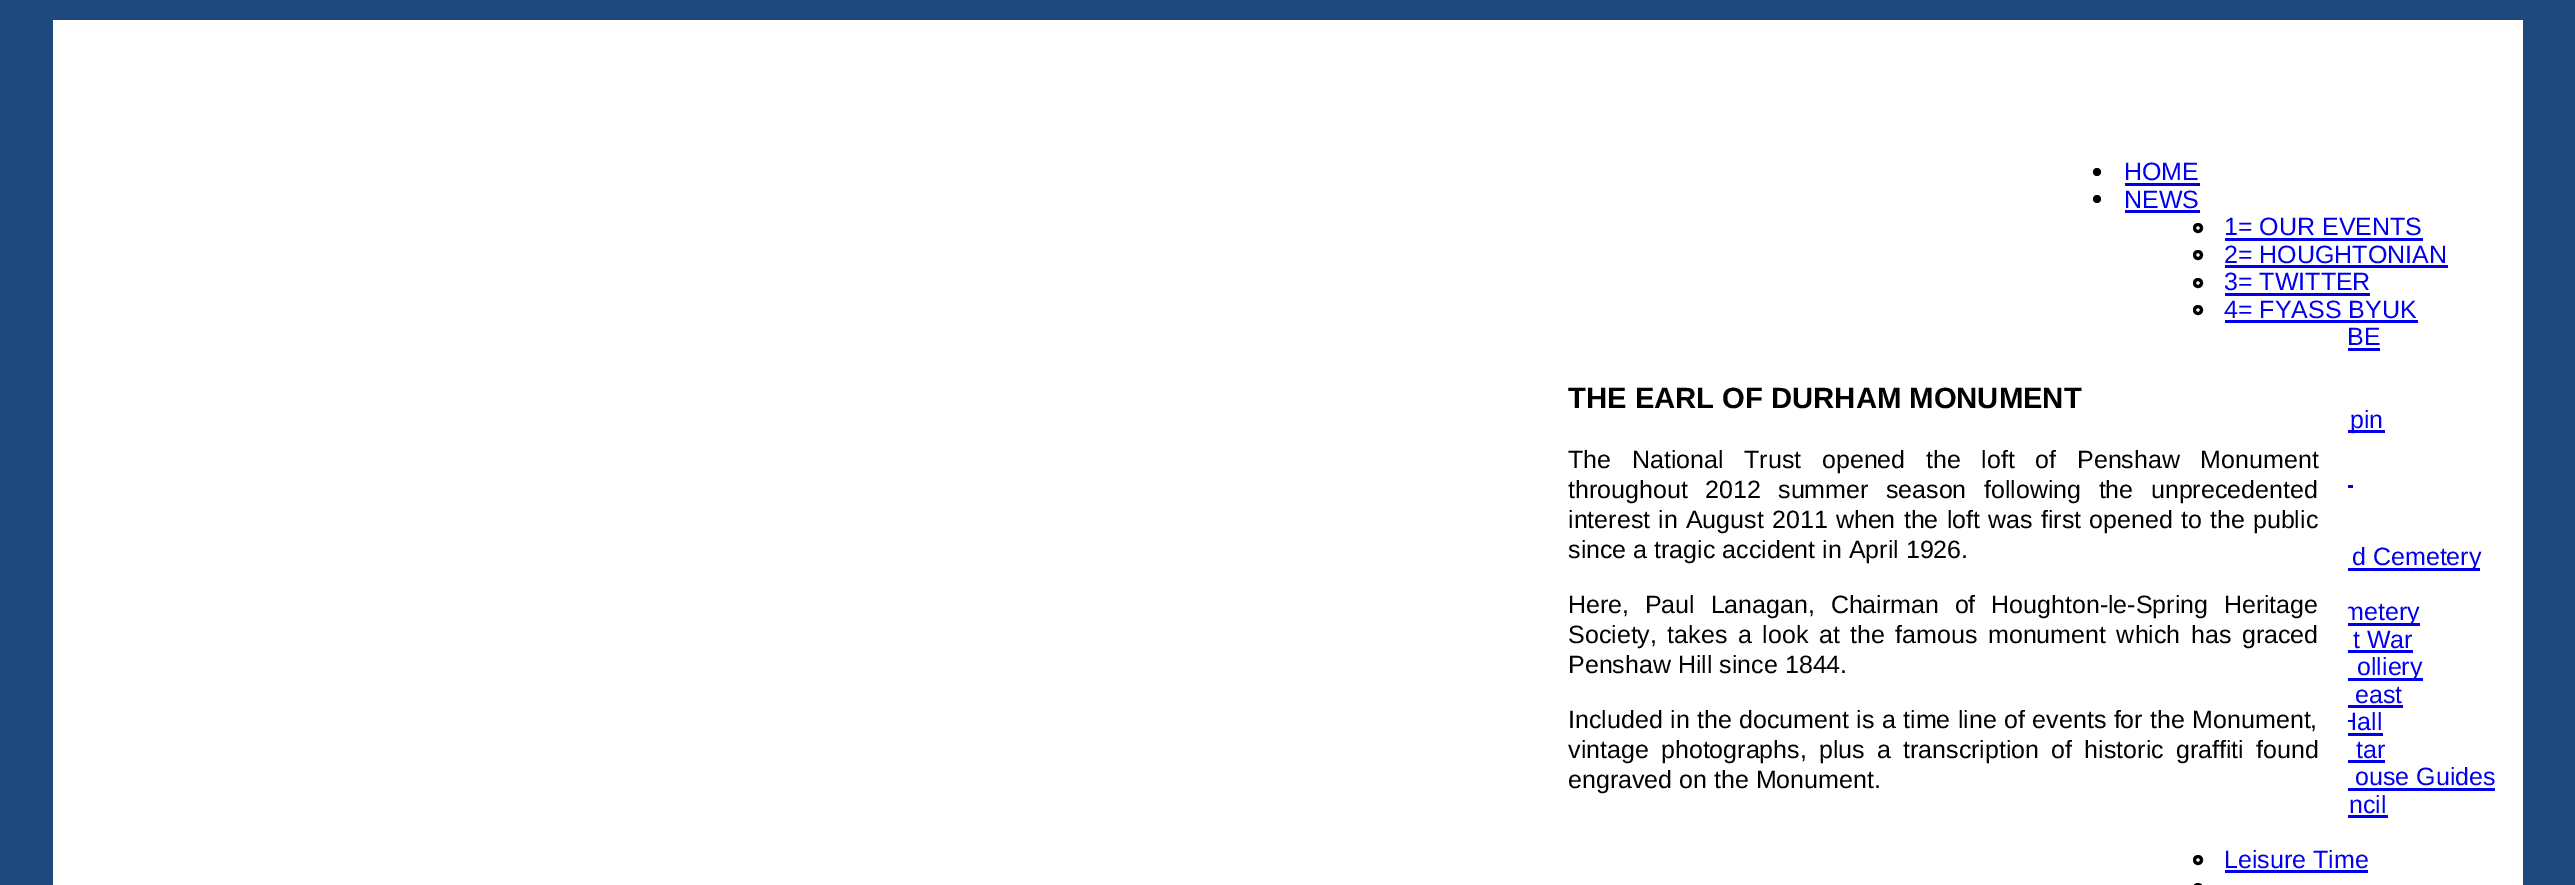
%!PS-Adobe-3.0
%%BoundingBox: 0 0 2575 885
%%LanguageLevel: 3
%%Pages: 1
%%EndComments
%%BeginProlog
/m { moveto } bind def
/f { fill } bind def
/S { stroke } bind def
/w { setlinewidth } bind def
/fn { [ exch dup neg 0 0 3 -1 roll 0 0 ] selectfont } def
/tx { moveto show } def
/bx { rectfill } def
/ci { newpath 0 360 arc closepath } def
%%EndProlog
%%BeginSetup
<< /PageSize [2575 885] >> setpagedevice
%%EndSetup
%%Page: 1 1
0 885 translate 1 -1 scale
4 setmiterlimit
0.122 0.286 0.49 setrgbcolor
0 0 2575 885 bx
1 setgray
53 20 2470 865 bx
0 setgray
2097 172 4 ci f
/LiberationSans-Regular 25 fn
0 0 0.933 setrgbcolor
(HOME) 2124 180 tx
2125 183 75 3 bx
0 setgray
2097 199 4 ci f
0 0 0.933 setrgbcolor
(NEWS) 2124 208 tx
2125 210 75 3 bx
0 setgray
3 w
2198 228 3.5 ci S
0 0 0.933 setrgbcolor
(1= OUR EVENTS) 2224 235 tx
2225 238 198 3 bx
0 setgray
2198 255 3.5 ci S
0 0 0.933 setrgbcolor
(2= HOUGHTONIAN) 2224 263 tx
2225 265 223 3 bx
0 setgray
2198 283 3.5 ci S
0 0 0.933 setrgbcolor
(3= TWITTER) 2224 290 tx
2225 293 145 3 bx
0 setgray
2198 310 3.5 ci S
0 0 0.933 setrgbcolor
(4= FYASS BYUK) 2224 318 tx
2225 320 193 3 bx
(BE) 2347 345 tx
2348 348 32 3 bx
2348 430 37 3 bx
(pin) 2350 428 tx
2348 485 5 3 bx
2348 568 132 3 bx
(d Cemetery) 2352 565 tx
2348 623 72 3 bx
(metery) 2343 620 tx
(t War) 2353 648 tx
2348 650 65 3 bx
2348 678 75 3 bx
(olliery) 2357 675 tx
(east) 2355 703 tx
2348 705 55 3 bx
(Hall) 2339 730 tx
2348 733 35 3 bx
(tar) 2356 758 tx
2348 760 37 3 bx
(ouse Guides) 2355 785 tx
2348 788 147 3 bx
(ncil) 2349 813 tx
2348 815 40 3 bx
0 setgray
2198 860 3.5 ci S
0 0 0.933 setrgbcolor
(Leisure Time) 2224 868 tx
2225 870 143 3 bx
0 setgray
2198 888 3.5 ci S
1 setgray
2253 606 95 244 bx
/LiberationSans-Bold 29.25 fn
0 setgray
(THE EARL OF DURHAM MONUMENT) 1568 408 tx
/LiberationSans-Regular 25 fn
1568 468 m 13.75 0 32 (The National Trust opened the loft of Penshaw Monument) widthshow
1568 498 m 10.5 0 32 (throughout 2012 summer season following the unprecedented) widthshow
1568 528 m 1.25 0 32 (interest in August 2011 when the loft was first opened to the public) widthshow
(since a tragic accident in April 1926.) 1568 558 tx
1568 613 m 8.75 0 32 (Here, Paul Lanagan, Chairman of Houghton-le-Spring Heritage) widthshow
1568 643 m 3.6 0 32 (Society, takes a look at the famous monument which has graced) widthshow
(Penshaw Hill since 1844.) 1568 673 tx
1568 728 m 0.5 0 32 (Included in the document is a time line of events for the Monument,) widthshow
1568 758 m 5.25 0 32 (vintage photographs, plus a transcription of historic graffiti found) widthshow
(engraved on the Monument.) 1568 788 tx
showpage
%%EOF
